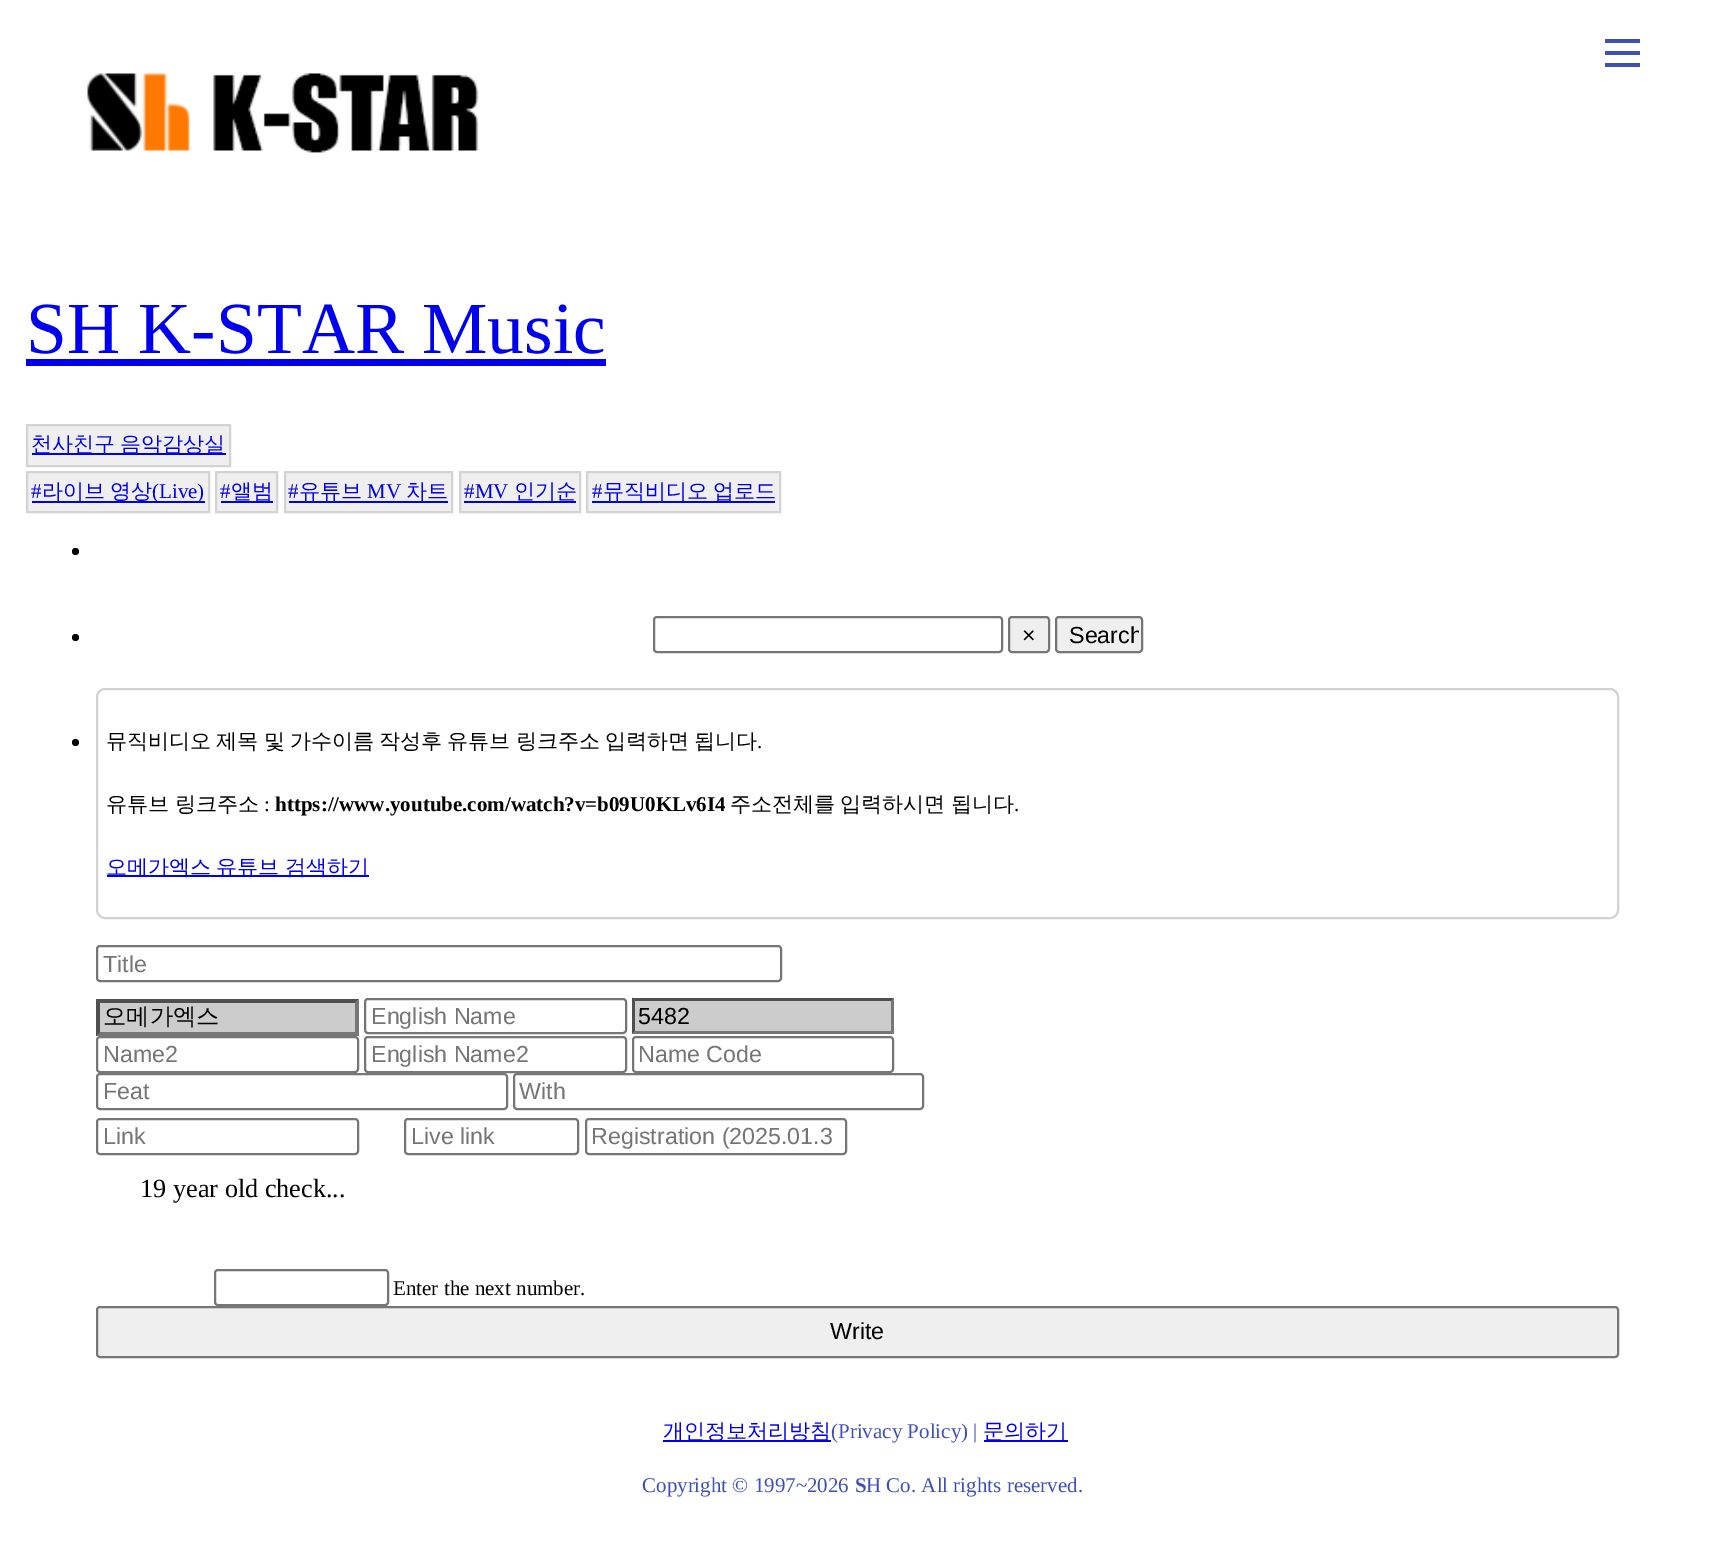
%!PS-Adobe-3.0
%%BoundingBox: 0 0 1724 1541
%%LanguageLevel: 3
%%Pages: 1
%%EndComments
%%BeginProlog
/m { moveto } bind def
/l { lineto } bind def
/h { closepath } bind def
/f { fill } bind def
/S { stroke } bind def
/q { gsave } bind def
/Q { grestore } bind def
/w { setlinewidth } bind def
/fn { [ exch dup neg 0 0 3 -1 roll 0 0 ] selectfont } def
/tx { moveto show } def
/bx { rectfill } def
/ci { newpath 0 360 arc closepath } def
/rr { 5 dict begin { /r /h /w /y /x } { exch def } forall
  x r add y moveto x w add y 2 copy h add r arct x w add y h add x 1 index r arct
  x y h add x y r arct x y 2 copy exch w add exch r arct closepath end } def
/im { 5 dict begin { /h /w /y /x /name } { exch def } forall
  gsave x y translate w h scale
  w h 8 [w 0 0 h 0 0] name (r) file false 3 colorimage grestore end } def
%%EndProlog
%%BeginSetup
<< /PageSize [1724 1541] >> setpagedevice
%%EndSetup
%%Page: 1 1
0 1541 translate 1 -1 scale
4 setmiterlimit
1 setgray
0 0 1724 1541 bx
0.247 0.318 0.71 setrgbcolor
1605 39 35 4 bx
1605 51 35 4 bx
1605 63 35 4 bx
(image0.raw) 87 73 392 80 im
/LiberationSerif-Regular 73.5 fn
0 0 0.933 setrgbcolor
(SH K-STAR Music) 26 353 tx
26 359 580 7 bx
0.937 setgray
27 425 m 230 425 l 230 466 l 27 466 l h q f Q
0.827 setgray
2 w
S
0 0 0.933 setrgbcolor
32 453 194 2 bx
/WenQuanYiZenHei-Medium 21 fn
31 451 m -1 0 32 (천사친구 음악감상실) widthshow
0.937 setgray
27 472 m 209 472 l 209 512 l 27 512 l h q f Q
0.827 setgray
S
/LiberationSerif-Regular 21 fn
0 0 0.933 setrgbcolor
(#) 31 498 tx
/WenQuanYiZenHei-Medium 21 fn
42 498 m -1 0 32 (라이브 영상) widthshow
32 501 173 2 bx
/LiberationSerif-Regular 21 fn
(\(Live\)) 152 498 tx
0.937 setgray
216 472 m 277 472 l 277 512 l 216 512 l h q f Q
0.827 setgray
S
0 0 0.933 setrgbcolor
(#) 220 498 tx
221 501 52 2 bx
/WenQuanYiZenHei-Medium 21 fn
(앨범) 231 498 tx
0.937 setgray
285 472 m 452 472 l 452 512 l 285 512 l h q f Q
0.827 setgray
S
/LiberationSerif-Regular 21 fn
0 0 0.933 setrgbcolor
(#) 288 498 tx
/WenQuanYiZenHei-Medium 21 fn
(유튜브) 299 498 tx
289 501 159 2 bx
/LiberationSerif-Regular 21 fn
(MV) 367 498 tx
/WenQuanYiZenHei-Medium 21 fn
(차트) 406 498 tx
0.937 setgray
460 472 m 580 472 l 580 512 l 460 512 l h q f Q
0.827 setgray
S
/LiberationSerif-Regular 21 fn
0 0 0.933 setrgbcolor
(#MV) 464 498 tx
464 501 112 2 bx
/WenQuanYiZenHei-Medium 21 fn
(인기순) 514 498 tx
0.937 setgray
587 472 m 780 472 l 780 512 l 587 512 l h q f Q
0.827 setgray
S
/LiberationSerif-Regular 21 fn
0 0 0.933 setrgbcolor
(#) 592 498 tx
592 501 183 2 bx
/WenQuanYiZenHei-Medium 21 fn
603 498 m -1 0 32 (뮤직비디오 업로드) widthshow
0 setgray
75.5 551.5 3.5 ci f
75.5 637.5 3.5 ci f
0.463 setgray
654 617 348 35 3 rr S
0.937 setgray
1009 617 40 35 3 rr q f Q
0.463 setgray
S
/LiberationSans-Regular 23.25 fn
0 setgray
(×) 1022 643 tx
0.937 setgray
1056 617 86 35 3 rr q f Q
0.463 setgray
S
q
1059 620 80 29 rectclip
0 setgray
(Search) 1069 643 tx
Q
0 setgray
75.5 742.5 3.5 ci f
0.827 setgray
97 689 1521 229 8 rr S
/WenQuanYiZenHei-Medium 21 fn
0 setgray
106 748 m -1 0 32 (뮤직비디오 제목 및 가수이름 작성후 유튜브 링크주소 입력하면 됩니다) widthshow
/LiberationSerif-Regular 21 fn
(.) 757 748 tx
/WenQuanYiZenHei-Medium 21 fn
(유튜브 링크주소) 106 811 tx
/LiberationSerif-Regular 21 fn
(:) 264 811 tx
/LiberationSerif-Bold 21 fn
(https://www.youtube.com/watch?v=b09U0KLv6I4) 275 811 tx
/WenQuanYiZenHei-Medium 21 fn
730 811 m -1 0 32 (주소전체를 입력하시면 됩니다) widthshow
/LiberationSerif-Regular 21 fn
(.) 1014 811 tx
0 0 0.933 setrgbcolor
107 875 262 2 bx
/WenQuanYiZenHei-Medium 21 fn
106 874 m -1 0 32 (오메가엑스 유튜브 검색하기) widthshow
0.463 setgray
97 946 684 35 3 rr S
/LiberationSans-Regular 23.25 fn
0.459 setgray
(Title) 103 972 tx
0.8 setgray
96 999 263 37 bx
0.31 setgray
96 999 m 359 999 l 355 1003 l 100 1003 l h f
0.463 setgray
359 999 m 359 1036 l 355 1032.5 l 355 1003 l h f
359 1036 m 96 1036 l 100 1032 l 355 1032 l h f
0.31 setgray
96 1036 m 96 999 l 100 1003 l 100 1032.5 l h f
/WenQuanYiZenHei-Medium 23.25 fn
0 setgray
(오메가엑스) 103 1024 tx
0.463 setgray
365 999 261 34 3 rr S
/LiberationSans-Regular 23.25 fn
0.459 setgray
(English Name) 371 1024 tx
0.8 setgray
632 998 262 36 bx
0.31 setgray
632 998 m 894 998 l 891 1001 l 635 1001 l h f
0.463 setgray
894 997.5 m 894 1034 l 891 1031 l 891 1001 l h f
894 1034 m 632 1034 l 635 1031 l 891 1031 l h f
0.31 setgray
632 1034 m 632 997.5 l 635 1001 l 635 1031 l h f
0 setgray
(5482) 638 1024 tx
0.463 setgray
97 1037 261 35 3 rr S
0.459 setgray
(Name2) 103 1062 tx
0.463 setgray
365 1037 261 35 3 rr S
0.459 setgray
(English Name2) 371 1062 tx
0.463 setgray
633 1037 260 35 3 rr S
0.459 setgray
(Name Code) 638 1062 tx
0.463 setgray
97 1074 410 35 3 rr S
0.459 setgray
(Feat) 103 1099 tx
0.463 setgray
514 1074 409 35 3 rr S
0.459 setgray
(With) 519 1099 tx
0.463 setgray
97 1119 261 35 3 rr S
0.459 setgray
(Link) 103 1144 tx
0.463 setgray
405 1119 173 35 3 rr S
0.459 setgray
(Live link) 411 1144 tx
0.463 setgray
586 1119 260 35 3 rr S
0.459 setgray
(Registration \(2025.01.3) 591 1144 tx
/LiberationSerif-Regular 26.25 fn
0 setgray
(19 year old check...) 140 1197 tx
0.463 setgray
215 1270 173 35 3 rr S
/LiberationSerif-Regular 21 fn
0 setgray
(Enter the next number.) 393 1295 tx
0.937 setgray
97 1307 1521 50 3 rr q f Q
0.463 setgray
S
/LiberationSans-Regular 23.25 fn
0 setgray
(Write) 830 1339 tx
0 0 0.933 setrgbcolor
663 1440 168 2 bx
/WenQuanYiZenHei-Medium 21 fn
(개인정보처리방침) 663 1438 tx
/LiberationSerif-Regular 21 fn
0.247 0.318 0.71 setrgbcolor
(\(Privacy Policy\) |) 831 1438 tx
0 0 0.933 setrgbcolor
984 1440 84 2 bx
/WenQuanYiZenHei-Medium 21 fn
(문의하기) 983 1438 tx
/LiberationSerif-Regular 21 fn
0.247 0.318 0.71 setrgbcolor
(Copyright © 1997~2026) 642 1492 tx
/LiberationSerif-Bold 21 fn
(S) 855 1492 tx
/LiberationSerif-Regular 21 fn
(H Co. All rights reserved.) 866 1492 tx
showpage
%%EOF
